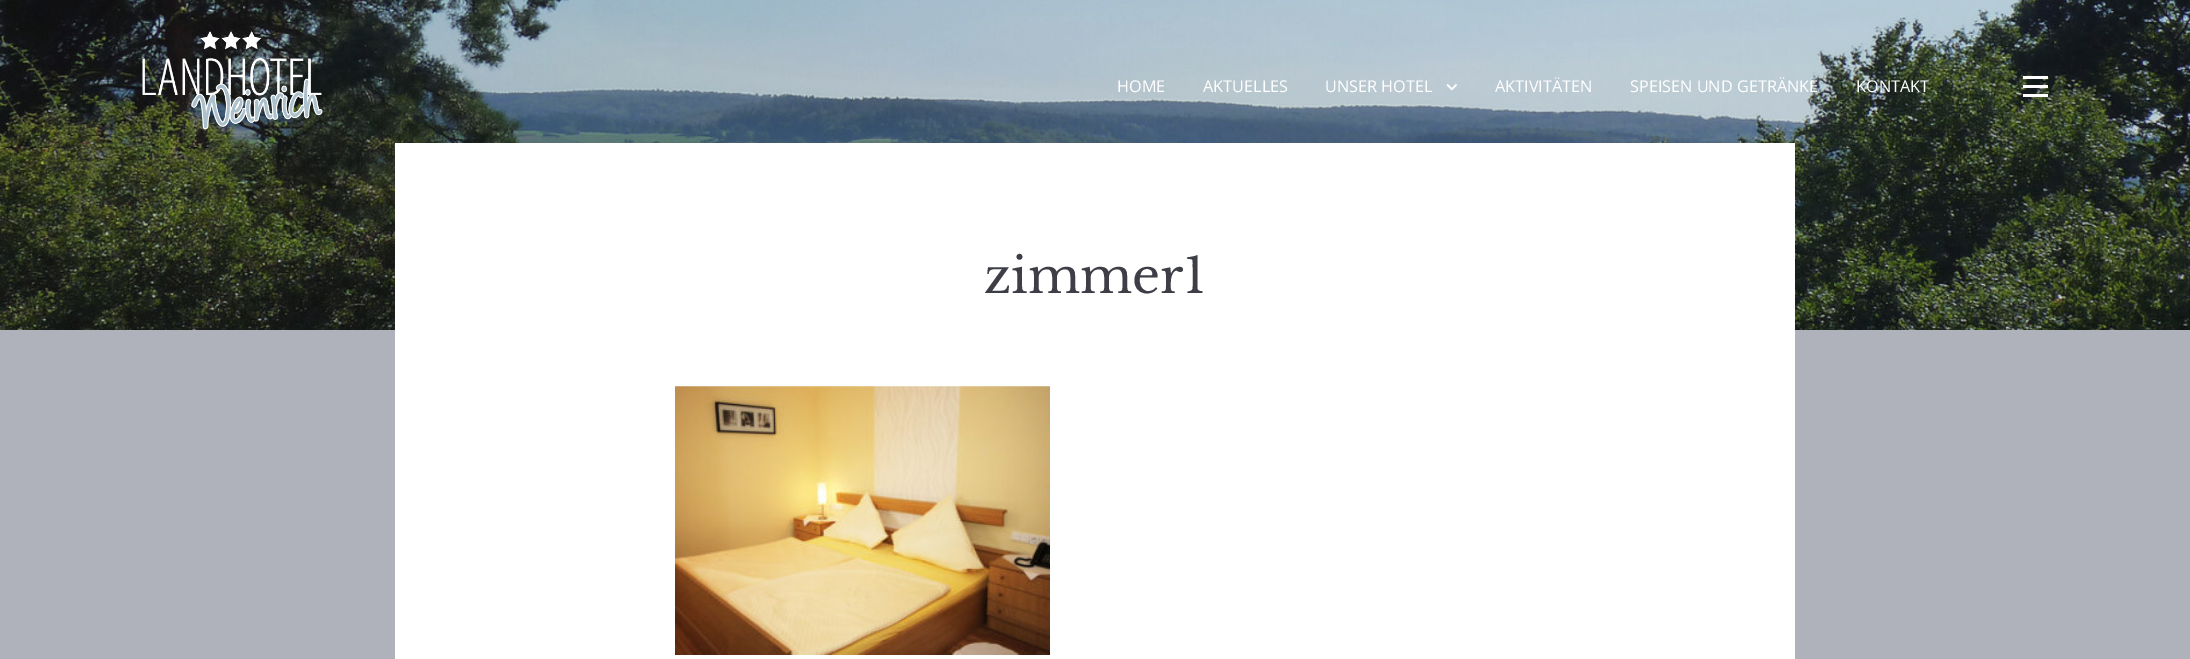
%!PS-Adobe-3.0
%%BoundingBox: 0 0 2190 659
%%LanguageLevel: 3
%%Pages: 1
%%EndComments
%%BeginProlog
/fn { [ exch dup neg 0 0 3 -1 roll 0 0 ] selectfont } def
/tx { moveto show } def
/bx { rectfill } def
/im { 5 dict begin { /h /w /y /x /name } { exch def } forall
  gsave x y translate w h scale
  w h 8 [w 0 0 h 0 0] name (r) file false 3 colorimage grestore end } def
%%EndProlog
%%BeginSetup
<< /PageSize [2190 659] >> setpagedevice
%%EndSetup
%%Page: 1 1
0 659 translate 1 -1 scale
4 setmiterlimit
0.686 0.698 0.733 setrgbcolor
0 0 2190 659 bx
(image0.raw) 0 0 2190 330 im
(image1.raw) 142 31 181 100 im
/OpenSans-Regular 16.25 fn
1 setgray
(HOME) 1117 92 tx
(AKTUELLES) 1203 92 tx
(UNSER HOTEL) 1325 92 tx
(image2.raw) 1446 84 11 7 im
(AKTIVITÄTEN) 1495 92 tx
(SPEISEN UND GETRÄNKE) 1630 92 tx
(KONTAKT) 1856 92 tx
2023 76 25 3 bx
2023 85 25 3 bx
2023 94 25 3 bx
395 143 1400 516 bx
/LibreBaskerville-Regular 48.75 fn
0.243 0.247 0.275 setrgbcolor
(zimmer1) 984 293 tx
(image3.raw) 675 386 375 269 im
showpage
%%EOF
